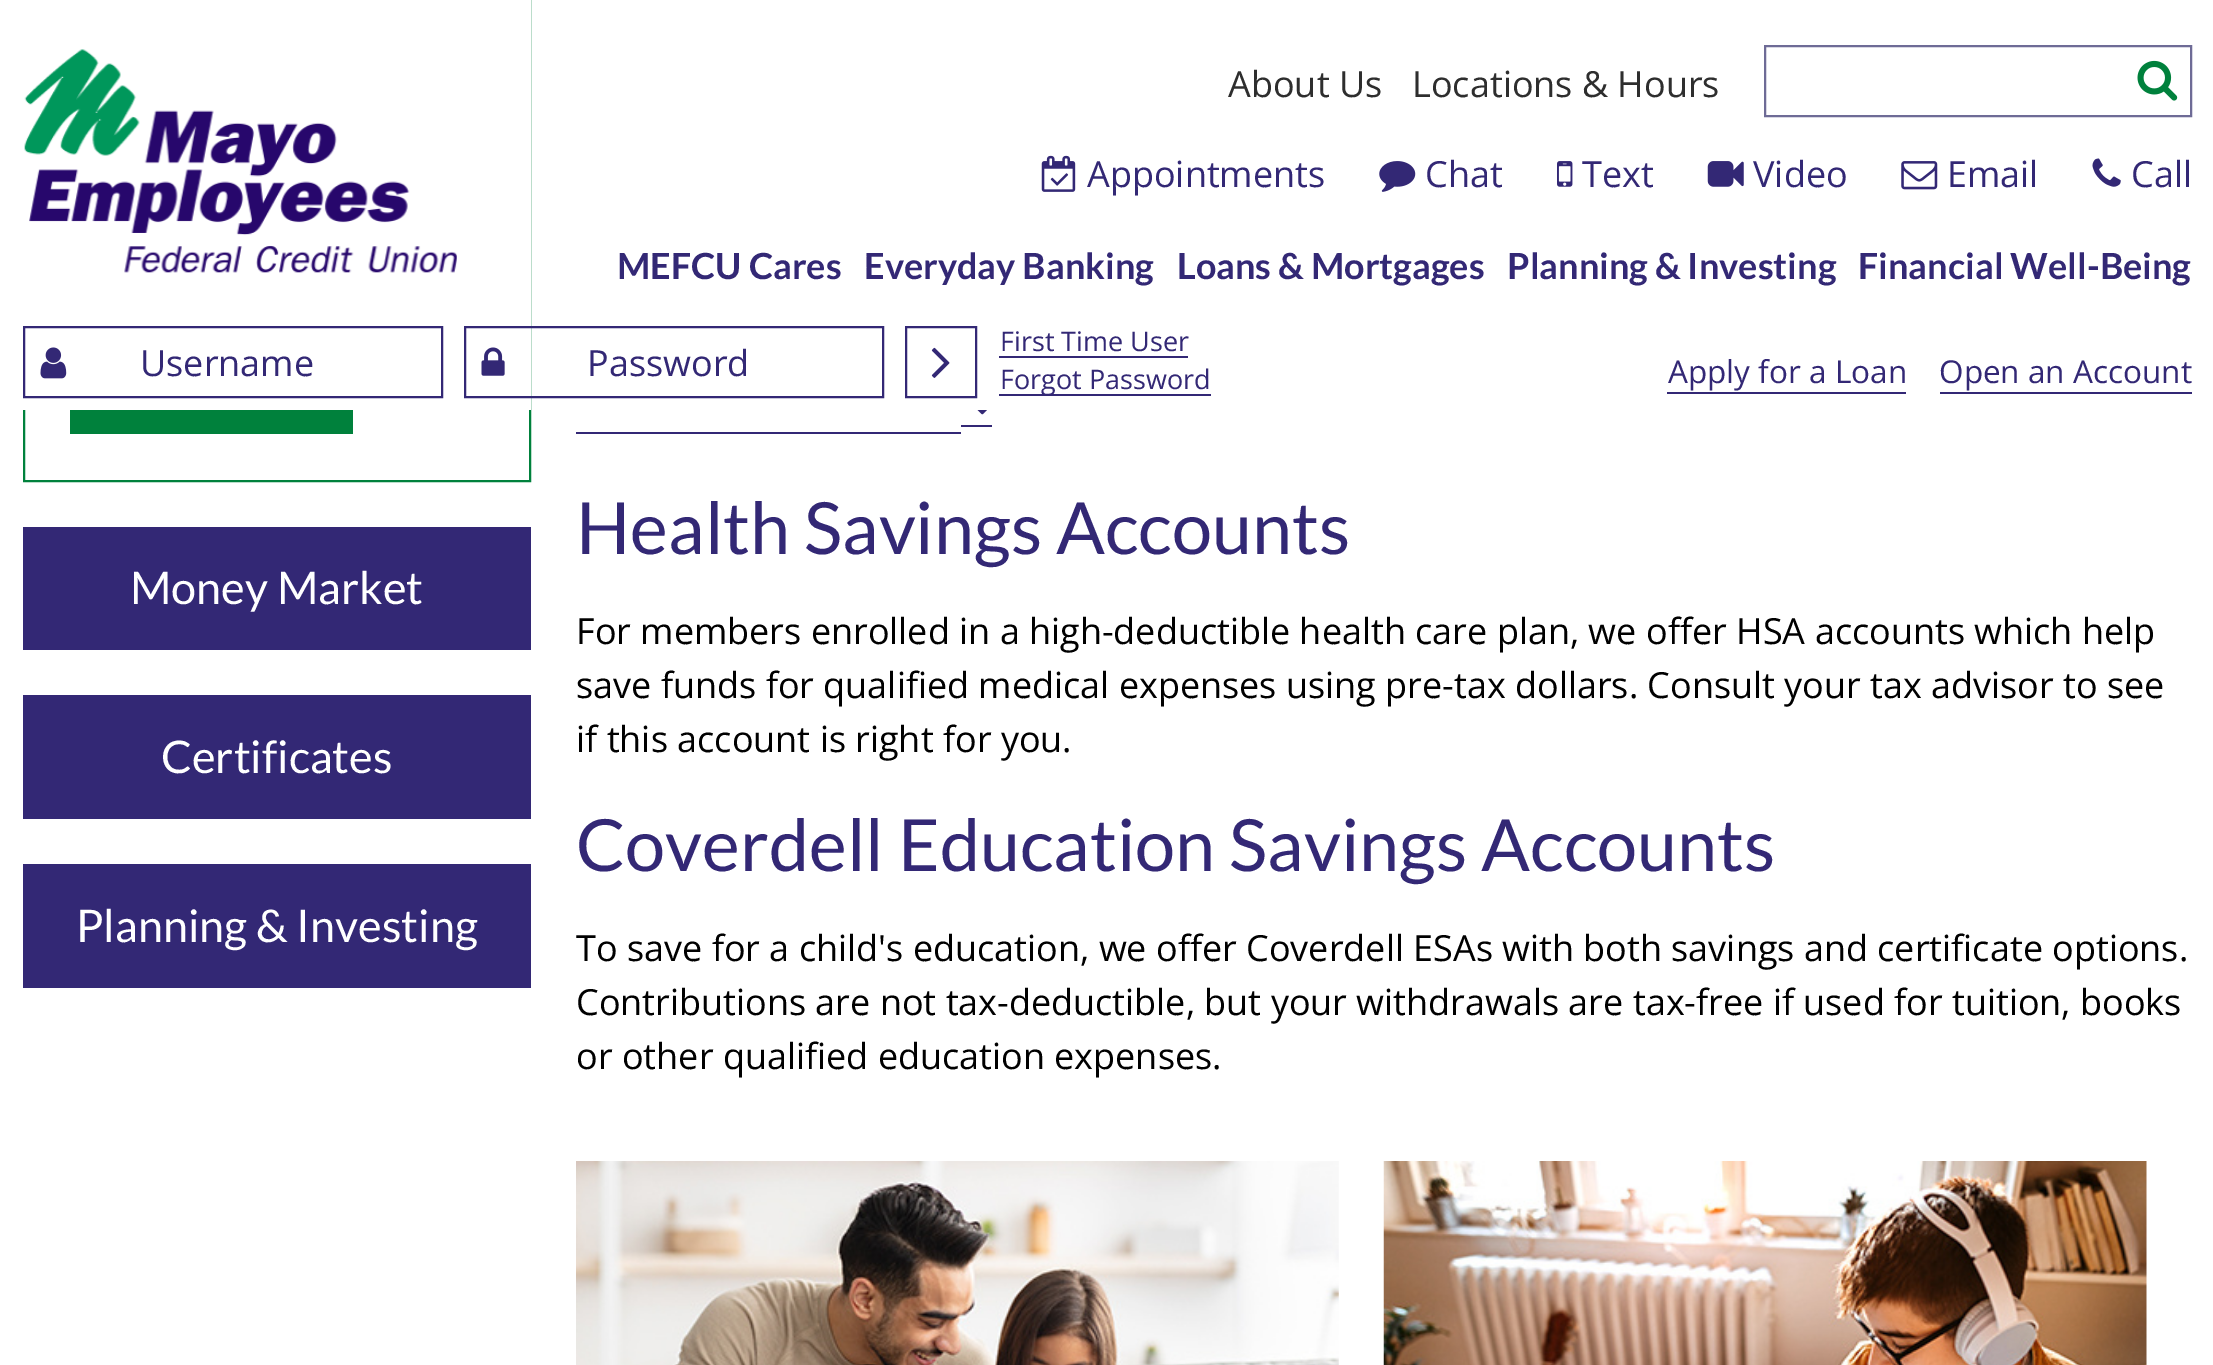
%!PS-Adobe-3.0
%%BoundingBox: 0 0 2213 1365
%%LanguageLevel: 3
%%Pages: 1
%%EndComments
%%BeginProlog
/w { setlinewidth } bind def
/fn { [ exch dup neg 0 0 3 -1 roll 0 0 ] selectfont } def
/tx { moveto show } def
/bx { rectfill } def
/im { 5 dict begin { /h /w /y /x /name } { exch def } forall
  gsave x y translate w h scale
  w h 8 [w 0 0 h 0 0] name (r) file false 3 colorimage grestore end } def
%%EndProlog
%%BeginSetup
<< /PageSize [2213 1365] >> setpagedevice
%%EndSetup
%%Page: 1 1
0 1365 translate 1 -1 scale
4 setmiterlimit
1 setgray
0 0 2213 1365 bx
0 0.506 0.235 setrgbcolor
2 w
24 -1 506 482 rectstroke
1 setgray
23 0 508 410 bx
(image0.raw) 24 49 433 224 im
/OpenSans-Regular 36 fn
0.18 setgray
(About Us) 1228 97 tx
(Locations & Hours) 1412 97 tx
0.431 0.42 0.588 setrgbcolor
1765 46 426 70 rectstroke
(image1.raw) 2137 60 41 41 im
(image2.raw) 1041 155 35 37 im
0.2 0.157 0.459 setrgbcolor
(Appointments) 1087 187 tx
(image3.raw) 1379 161 37 31 im
(Chat) 1425 187 tx
(image4.raw) 1557 161 16 26 im
(Text) 1582 187 tx
(image5.raw) 1707 161 37 26 im
(Video) 1753 187 tx
(image6.raw) 1901 161 37 29 im
(Email) 1947 187 tx
(image7.raw) 2092 158 29 29 im
(Call) 2131 187 tx
/Lato-Bold 36 fn
(MEFCU Cares) 617 279 tx
(Everyday Banking) 864 279 tx
(Loans & Mortgages) 1177 279 tx
(Planning & Investing) 1507 279 tx
(Financial Well-Being) 1858 279 tx
24 327 418 70 rectstroke
(image8.raw) 40 347 27 32 im
/OpenSans-Regular 36 fn
(Username) 140 376 tx
465 327 418 70 rectstroke
(image9.raw) 481 347 24 29 im
(Password) 587 376 tx
906 327 70 70 rectstroke
(image10.raw) 931 347 19 31 im
999 356 189 2 bx
/OpenSans-Regular 27 fn
(First Time User) 1000 351 tx
999 394 212 2 bx
(Forgot Password) 1000 389 tx
/OpenSans-Regular 31.5 fn
(Apply for a Loan) 1668 383 tx
1667 392 239 2 bx
(Open an Account) 1939 383 tx
1940 392 252 2 bx
0 0.506 0.235 setrgbcolor
70 410 283 24 bx
0.2 0.157 0.459 setrgbcolor
23 527 508 123 bx
/Lato-Regular 45 fn
1 setgray
(Money Market) 130 604 tx
0.2 0.157 0.459 setrgbcolor
23 695 508 124 bx
1 setgray
(Certificates) 161 773 tx
0.2 0.157 0.459 setrgbcolor
23 864 508 124 bx
1 setgray
(Planning & Investing) 76 942 tx
(image11.raw) 977 410 10 5 im
0.2 0.157 0.459 setrgbcolor
961 425 31 2 bx
576 432 385 2 bx
/Lato-Regular 72 fn
(Health Savings Accounts) 576 554 tx
/OpenSans-Regular 36 fn
0 setgray
(For members enrolled in a high-deductible health care plan, we offer HSA accounts which help) 576 644 tx
(save funds for qualified medical expenses using pre-tax dollars. Consult your tax advisor to see) 576 698 tx
(if this account is right for you.) 576 752 tx
/Lato-Regular 72 fn
0.2 0.157 0.459 setrgbcolor
(Coverdell Education Savings Accounts) 576 871 tx
/OpenSans-Regular 36 fn
0 setgray
(To save for a child's education, we offer Coverdell ESAs with both savings and certificate options.) 576 961 tx
(Contributions are not tax-deductible, but your withdrawals are tax-free if used for tuition, books) 576 1015 tx
(or other qualified education expenses.) 576 1069 tx
(image12.raw) 576 1161 763 204 im
(image13.raw) 1383 1161 764 204 im
showpage
%%EOF
